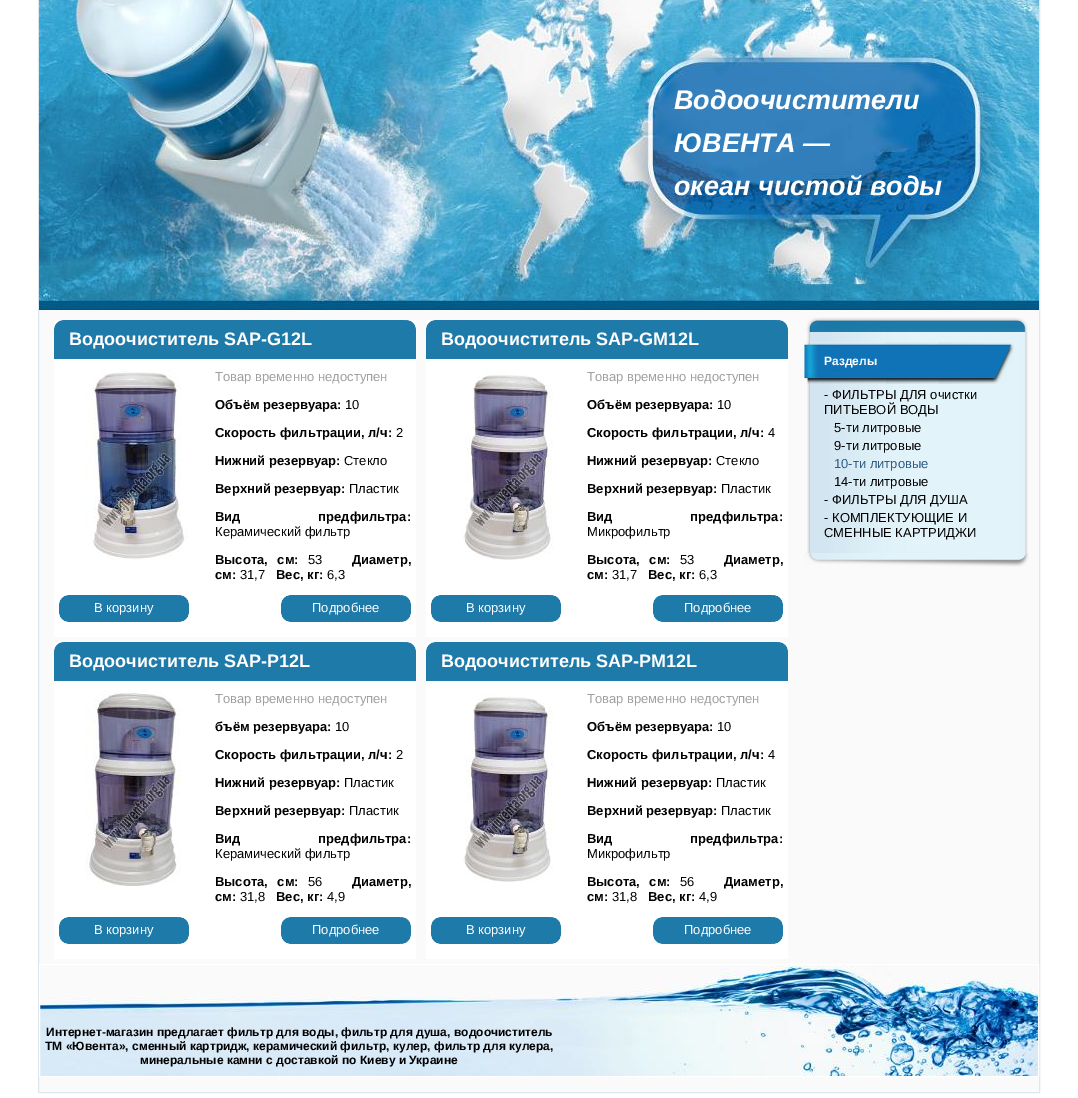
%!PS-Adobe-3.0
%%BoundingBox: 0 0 1078 1098
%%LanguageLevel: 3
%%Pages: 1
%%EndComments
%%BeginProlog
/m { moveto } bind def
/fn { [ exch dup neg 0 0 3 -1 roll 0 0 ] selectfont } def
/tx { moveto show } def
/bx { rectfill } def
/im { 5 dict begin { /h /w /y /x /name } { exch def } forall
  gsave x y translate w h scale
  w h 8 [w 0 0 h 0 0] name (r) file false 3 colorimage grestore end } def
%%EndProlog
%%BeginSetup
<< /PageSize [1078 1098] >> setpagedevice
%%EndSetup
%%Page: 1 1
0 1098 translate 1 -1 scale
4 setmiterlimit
1 setgray
0 0 1078 1098 bx
0.98 setgray
39 310 1000 782 bx
0.863 0.91 0.929 setrgbcolor
38.5 -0.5 1001 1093 rectstroke
(image0.raw) 39 0 1000 310 im
/LiberationSans-BoldItalic 27 fn
1 setgray
(Водоочистители) 674 109 tx
(ЮВЕНТА —) 674 152 tx
(океан чистой воды) 674 195 tx
54 359 362 278 bx
(image1.raw) 54 320 362 39 im
/LiberationSans-Bold 18 fn
(Водоочиститель SAP-G12L) 69 345 tx
(image2.raw) 85 369 103 192 im
/LiberationSans-Regular 13 fn
0.627 setgray
(Товар временно недоступен) 215 381 tx
/LiberationSans-Bold 13 fn
0 setgray
(Объём резервуара:) 215 409 tx
/LiberationSans-Regular 13 fn
(10) 345 409 tx
/LiberationSans-Bold 13 fn
(Скорость фильтрации, л/ч:) 215 437 tx
/LiberationSans-Regular 13 fn
(2) 396 437 tx
/LiberationSans-Bold 13 fn
(Нижний резервуар:) 215 465 tx
/LiberationSans-Regular 13 fn
(Стекло) 344 465 tx
/LiberationSans-Bold 13 fn
(Верхний резервуар:) 215 493 tx
/LiberationSans-Regular 13 fn
(Пластик) 349 493 tx
/LiberationSans-Bold 13 fn
215 521 m 74 0 32 (Вид предфильтра:) widthshow
/LiberationSans-Regular 13 fn
(Керамический фильтр) 215 536 tx
/LiberationSans-Bold 13 fn
215 564 m 6 0 32 (Высота, см:) widthshow
/LiberationSans-Regular 13 fn
(53) 308 564 tx
/LiberationSans-Bold 13 fn
(Диаметр,) 352 564 tx
(см:) 215 579 tx
/LiberationSans-Regular 13 fn
(31,7) 240 579 tx
/LiberationSans-Bold 13 fn
(Вес, кг:) 276 579 tx
/LiberationSans-Regular 13 fn
(6,3) 327 579 tx
(image3.raw) 59 595 130 27 im
1 setgray
(В корзину) 94 612 tx
(image3.raw) 281 595 130 27 im
(Подробнее) 312 612 tx
426 359 362 278 bx
(image1.raw) 426 320 362 39 im
/LiberationSans-Bold 18 fn
(Водоочиститель SAP-GM12L) 441 345 tx
(image4.raw) 463 369 90 191 im
/LiberationSans-Regular 13 fn
0.627 setgray
(Товар временно недоступен) 587 381 tx
/LiberationSans-Bold 13 fn
0 setgray
(Объём резервуара:) 587 409 tx
/LiberationSans-Regular 13 fn
(10) 717 409 tx
/LiberationSans-Bold 13 fn
(Скорость фильтрации, л/ч:) 587 437 tx
/LiberationSans-Regular 13 fn
(4) 768 437 tx
/LiberationSans-Bold 13 fn
(Нижний резервуар:) 587 465 tx
/LiberationSans-Regular 13 fn
(Стекло) 716 465 tx
/LiberationSans-Bold 13 fn
(Верхний резервуар:) 587 493 tx
/LiberationSans-Regular 13 fn
(Пластик) 721 493 tx
/LiberationSans-Bold 13 fn
587 521 m 74 0 32 (Вид предфильтра:) widthshow
/LiberationSans-Regular 13 fn
(Микрофильтр) 587 536 tx
/LiberationSans-Bold 13 fn
587 564 m 6 0 32 (Высота, см:) widthshow
/LiberationSans-Regular 13 fn
(53) 680 564 tx
/LiberationSans-Bold 13 fn
(Диаметр,) 724 564 tx
(см:) 587 579 tx
/LiberationSans-Regular 13 fn
(31,7) 612 579 tx
/LiberationSans-Bold 13 fn
(Вес, кг:) 648 579 tx
/LiberationSans-Regular 13 fn
(6,3) 699 579 tx
(image3.raw) 431 595 130 27 im
1 setgray
(В корзину) 466 612 tx
(image3.raw) 653 595 130 27 im
(Подробнее) 684 612 tx
54 681 362 278 bx
(image1.raw) 54 642 362 39 im
/LiberationSans-Bold 18 fn
(Водоочиститель SAP-P12L) 69 667 tx
(image5.raw) 85 691 96 195 im
/LiberationSans-Regular 13 fn
0.627 setgray
(Товар временно недоступен) 215 703 tx
/LiberationSans-Bold 13 fn
0 setgray
(бъём резервуара:) 215 731 tx
/LiberationSans-Regular 13 fn
(10) 335 731 tx
/LiberationSans-Bold 13 fn
(Скорость фильтрации, л/ч:) 215 759 tx
/LiberationSans-Regular 13 fn
(2) 396 759 tx
/LiberationSans-Bold 13 fn
(Нижний резервуар:) 215 787 tx
/LiberationSans-Regular 13 fn
(Пластик) 344 787 tx
/LiberationSans-Bold 13 fn
(Верхний резервуар:) 215 815 tx
/LiberationSans-Regular 13 fn
(Пластик) 349 815 tx
/LiberationSans-Bold 13 fn
215 843 m 74 0 32 (Вид предфильтра:) widthshow
/LiberationSans-Regular 13 fn
(Керамический фильтр) 215 858 tx
/LiberationSans-Bold 13 fn
215 886 m 6 0 32 (Высота, см:) widthshow
/LiberationSans-Regular 13 fn
(56) 308 886 tx
/LiberationSans-Bold 13 fn
(Диаметр,) 352 886 tx
(см:) 215 901 tx
/LiberationSans-Regular 13 fn
(31,8) 240 901 tx
/LiberationSans-Bold 13 fn
(Вес, кг:) 276 901 tx
/LiberationSans-Regular 13 fn
(4,9) 327 901 tx
(image3.raw) 59 917 130 27 im
1 setgray
(В корзину) 94 934 tx
(image3.raw) 281 917 130 27 im
(Подробнее) 312 934 tx
426 681 362 278 bx
(image1.raw) 426 642 362 39 im
/LiberationSans-Bold 18 fn
(Водоочиститель SAP-PM12L) 441 667 tx
(image4.raw) 463 691 90 191 im
/LiberationSans-Regular 13 fn
0.627 setgray
(Товар временно недоступен) 587 703 tx
/LiberationSans-Bold 13 fn
0 setgray
(Объём резервуара:) 587 731 tx
/LiberationSans-Regular 13 fn
(10) 717 731 tx
/LiberationSans-Bold 13 fn
(Скорость фильтрации, л/ч:) 587 759 tx
/LiberationSans-Regular 13 fn
(4) 768 759 tx
/LiberationSans-Bold 13 fn
(Нижний резервуар:) 587 787 tx
/LiberationSans-Regular 13 fn
(Пластик) 716 787 tx
/LiberationSans-Bold 13 fn
(Верхний резервуар:) 587 815 tx
/LiberationSans-Regular 13 fn
(Пластик) 721 815 tx
/LiberationSans-Bold 13 fn
587 843 m 74 0 32 (Вид предфильтра:) widthshow
/LiberationSans-Regular 13 fn
(Микрофильтр) 587 858 tx
/LiberationSans-Bold 13 fn
587 886 m 6 0 32 (Высота, см:) widthshow
/LiberationSans-Regular 13 fn
(56) 680 886 tx
/LiberationSans-Bold 13 fn
(Диаметр,) 724 886 tx
(см:) 587 901 tx
/LiberationSans-Regular 13 fn
(31,8) 612 901 tx
/LiberationSans-Bold 13 fn
(Вес, кг:) 648 901 tx
/LiberationSans-Regular 13 fn
(4,9) 699 901 tx
(image3.raw) 431 917 130 27 im
1 setgray
(В корзину) 466 934 tx
(image3.raw) 653 917 130 27 im
(Подробнее) 684 934 tx
(image6.raw) 806 317 222 15 im
(image7.raw) 807 332 221 221 im
(image8.raw) 804 342 210 42 im
/LiberationSans-Bold 12 fn
(Разделы) 824 365 tx
/LiberationSans-Regular 13 fn
0 setgray
(- ФИЛЬТРЫ ДЛЯ очистки) 824 399 tx
(ПИТЬЕВОЙ ВОДЫ) 824 414 tx
(5-ти литровые) 834 432 tx
(9-ти литровые) 834 450 tx
0.18 0.357 0.514 setrgbcolor
(10-ти литровые) 834 468 tx
0 setgray
(14-ти литровые) 834 486 tx
(- ФИЛЬТРЫ ДЛЯ ДУША) 824 504 tx
(- КОМПЛЕКТУЮЩИЕ И) 824 522 tx
(СМЕННЫЕ КАРТРИДЖИ) 824 537 tx
(image9.raw) 804 553 225 14 im
(image10.raw) 40 965 998 111 im
1 setgray
39.5 964.5 999 112 rectstroke
0.906 setgray
46 1037 107 1 bx
/LiberationSans-Bold 12 fn
0 setgray
(Интернет-магазин предлагает) 46 1036 tx
0.906 setgray
227 1037 108 1 bx
0 setgray
(фильтр для воды,) 227 1036 tx
0.906 setgray
341 1037 106 1 bx
0 setgray
(фильтр для душа,) 341 1036 tx
0.906 setgray
454 1037 99 1 bx
0 setgray
(водоочиститель) 454 1036 tx
0.906 setgray
45 1051 80 1 bx
0 setgray
(ТМ «Ювента»,) 45 1050 tx
0.906 setgray
132 1051 114 1 bx
0 setgray
(сменный картридж,) 132 1050 tx
0.906 setgray
253 1051 133 1 bx
0 setgray
(керамический фильтр,) 253 1050 tx
0.906 setgray
393 1051 34 1 bx
0 setgray
(кулер,) 393 1050 tx
0.906 setgray
434 1051 116 1 bx
0 setgray
(фильтр для кулера,) 434 1050 tx
0.906 setgray
140 1065 123 1 bx
0 setgray
(минеральные камни с доставкой по) 140 1064 tx
0.906 setgray
360 1065 35 1 bx
0 setgray
(Киеву и) 360 1064 tx
0.906 setgray
409 1065 49 1 bx
0 setgray
(Украине) 409 1064 tx
showpage
%%EOF
